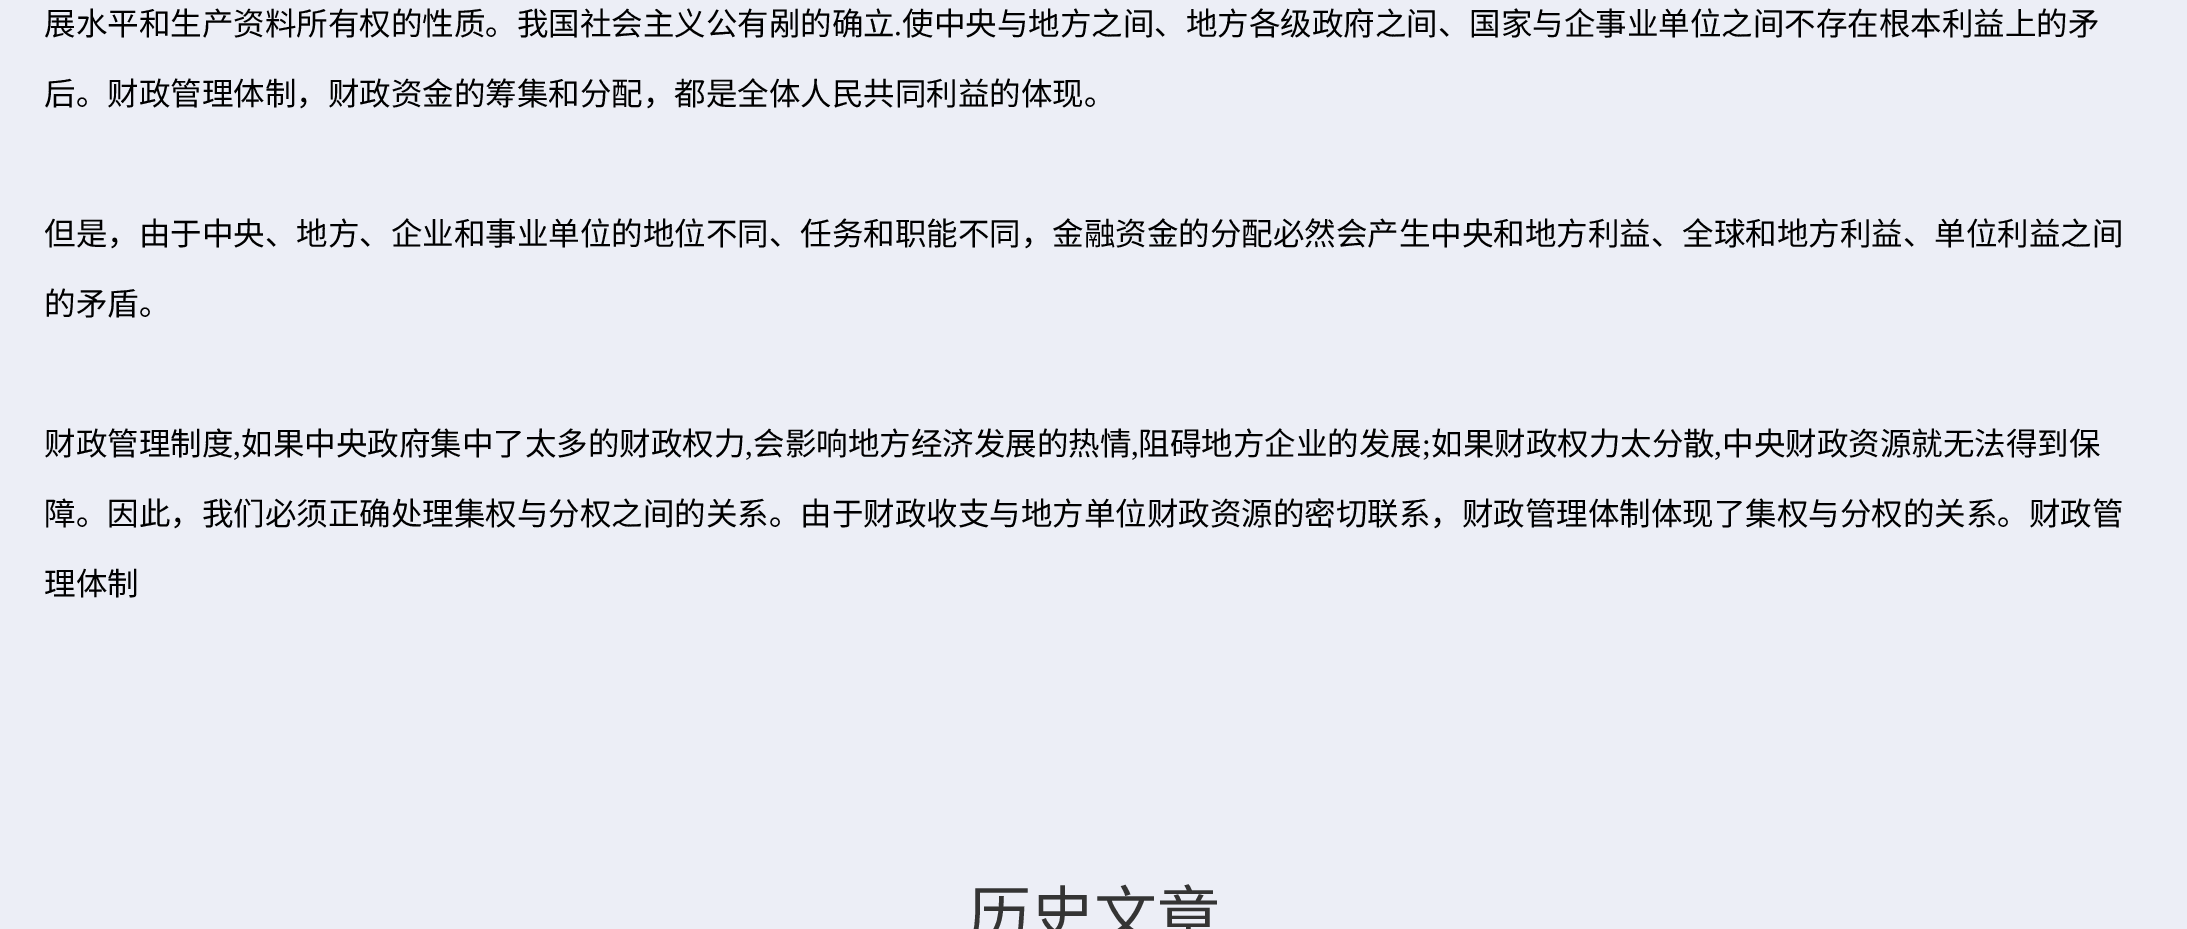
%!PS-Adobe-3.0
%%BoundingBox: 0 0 2187 929
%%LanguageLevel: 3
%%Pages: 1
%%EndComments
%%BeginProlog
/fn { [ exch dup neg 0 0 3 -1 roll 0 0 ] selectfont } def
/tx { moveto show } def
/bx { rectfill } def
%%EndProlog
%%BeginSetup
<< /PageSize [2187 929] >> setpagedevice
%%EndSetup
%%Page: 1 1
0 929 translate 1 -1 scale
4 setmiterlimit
0.925 0.933 0.965 setrgbcolor
0 0 2187 929 bx
/NotoSansCJKSC-Regular 31.5 fn
0 setgray
(展水平和生产资料所有权的性质。我国社会主义公有剐的确立) 44 35 tx
/LiberationSerif-Regular 31.5 fn
(.) 894 35 tx
/NotoSansCJKSC-Regular 31.5 fn
(使中央与地方之间、地方各级政府之间、国家与企事业单位之间不存在根本利益上的矛) 902 35 tx
(后。财政管理体制，财政资金的筹集和分配，都是全体人民共同利益的体现。) 44 105 tx
(但是，由于中央、地方、企业和事业单位的地位不同、任务和职能不同，金融资金的分配必然会产生中央和地方利益、全球和地方利益、单位利益之间) 44 245 tx
(的矛盾。) 44 315 tx
(财政管理制度) 44 455 tx
/LiberationSerif-Regular 31.5 fn
(,) 233 455 tx
/NotoSansCJKSC-Regular 31.5 fn
(如果中央政府集中了太多的财政权力) 241 455 tx
/LiberationSerif-Regular 31.5 fn
(,) 745 455 tx
/NotoSansCJKSC-Regular 31.5 fn
(会影响地方经济发展的热情) 753 455 tx
/LiberationSerif-Regular 31.5 fn
(,) 1131 455 tx
/NotoSansCJKSC-Regular 31.5 fn
(阻碍地方企业的发展) 1138 455 tx
/LiberationSerif-Regular 31.5 fn
(;) 1422 455 tx
/NotoSansCJKSC-Regular 31.5 fn
(如果财政权力太分散) 1431 455 tx
/LiberationSerif-Regular 31.5 fn
(,) 1714 455 tx
/NotoSansCJKSC-Regular 31.5 fn
(中央财政资源就无法得到保) 1722 455 tx
(障。因此，我们必须正确处理集权与分权之间的关系。由于财政收支与地方单位财政资源的密切联系，财政管理体制体现了集权与分权的关系。财政管) 44 525 tx
(理体制) 44 595 tx
/NotoSansCJKSC-Regular 63 fn
0.204 setgray
(历史文章) 968 938 tx
showpage
%%EOF
